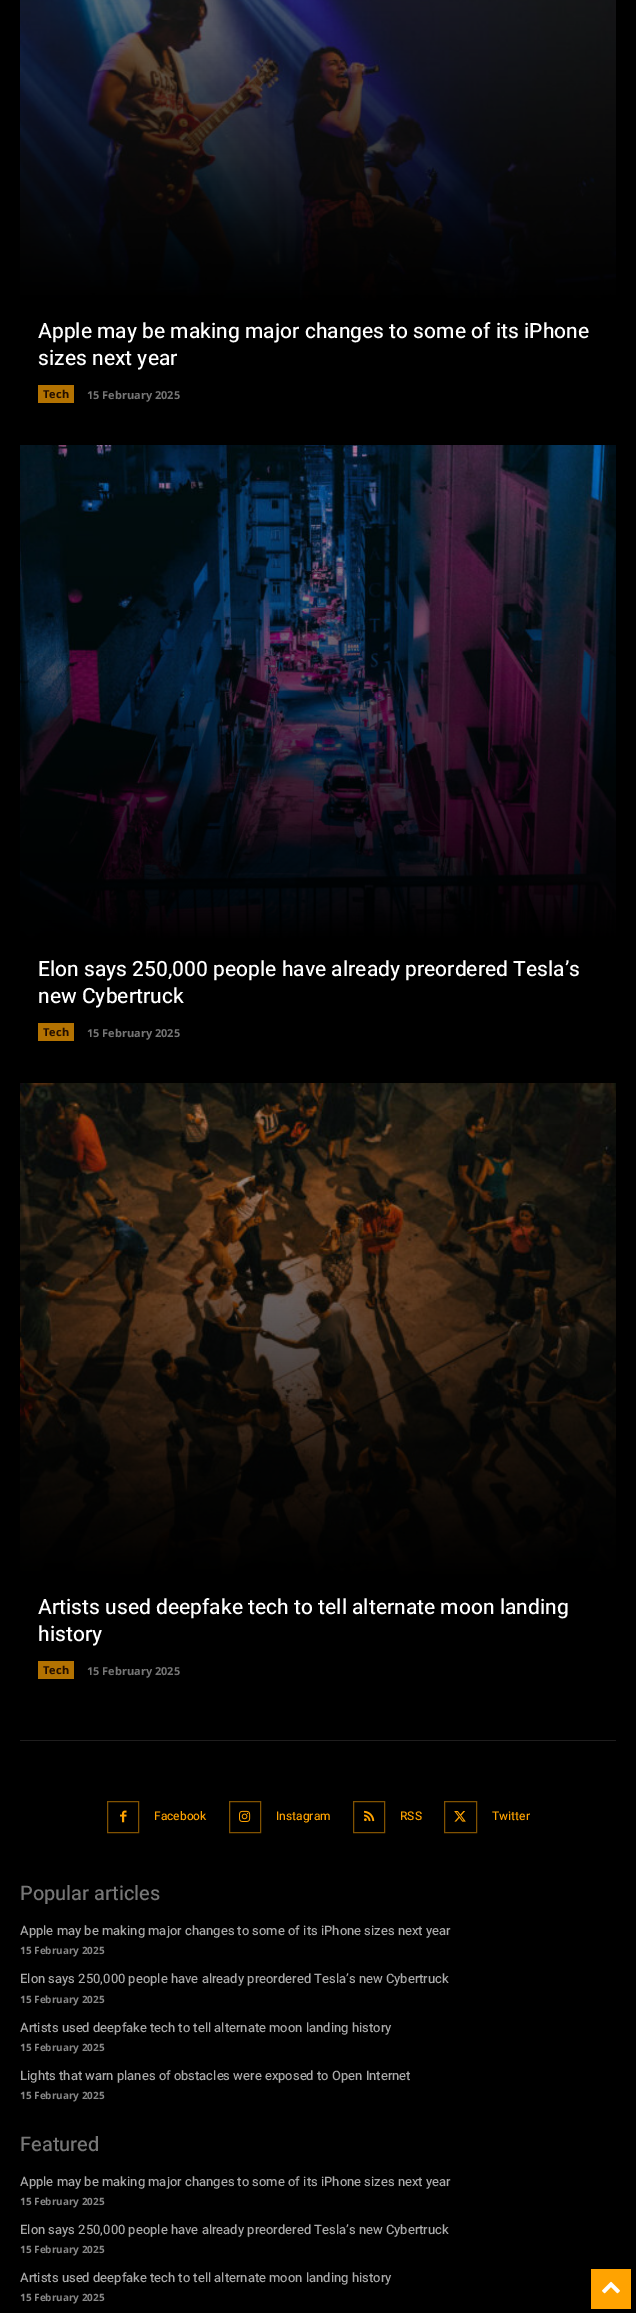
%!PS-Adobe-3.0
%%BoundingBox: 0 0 636 2313
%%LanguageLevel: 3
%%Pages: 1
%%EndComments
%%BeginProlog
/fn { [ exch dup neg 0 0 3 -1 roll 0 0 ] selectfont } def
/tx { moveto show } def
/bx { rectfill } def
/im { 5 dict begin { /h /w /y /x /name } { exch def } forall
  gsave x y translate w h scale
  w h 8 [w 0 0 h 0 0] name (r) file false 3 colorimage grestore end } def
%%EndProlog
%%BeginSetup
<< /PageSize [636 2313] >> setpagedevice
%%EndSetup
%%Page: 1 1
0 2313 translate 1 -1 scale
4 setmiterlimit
0 setgray
0 0 636 2313 bx
(image0.raw) 20 0 596 403 im
/Heebo-Medium 21 fn
1 setgray
(Apple may be making major changes to some of its iPhone) 38 338 tx
(sizes next year) 38 365 tx
0.702 0.447 0.004 setrgbcolor
38 385 36 18 bx
/OpenSans-Bold 11 fn
0.137 0.055 0 setrgbcolor
(Tech) 43 398 tx
0.463 setgray
(15 February 2025) 87 399 tx
(image1.raw) 20 445 596 596 im
/Heebo-Medium 21 fn
1 setgray
(Elon says 250,000 people have already preordered Tesla’s) 38 976 tx
(new Cybertruck) 38 1003 tx
0.702 0.447 0.004 setrgbcolor
38 1023 36 18 bx
/OpenSans-Bold 11 fn
0.137 0.055 0 setrgbcolor
(Tech) 43 1036 tx
0.463 setgray
(15 February 2025) 87 1037 tx
(image2.raw) 20 1083 596 596 im
/Heebo-Medium 21 fn
1 setgray
(Artists used deepfake tech to tell alternate moon landing) 38 1614 tx
(history) 38 1641 tx
0.702 0.447 0.004 setrgbcolor
38 1661 36 18 bx
/OpenSans-Bold 11 fn
0.137 0.055 0 setrgbcolor
(Tech) 43 1674 tx
0.463 setgray
(15 February 2025) 87 1675 tx
0.122 0.118 0.118 setrgbcolor
20 1740 596 1 bx
0.502 0.322 0.004 setrgbcolor
107.5 1801.5 31 31 rectstroke
(image3.raw) 120 1810 7 13 im
/Heebo-Medium 12 fn
1 0.639 0.004 setrgbcolor
(Facebook) 154 1820 tx
0.502 0.322 0.004 setrgbcolor
229.5 1801.5 31 31 rectstroke
(image4.raw) 239 1810 12 12 im
1 0.639 0.004 setrgbcolor
(Instagram) 276 1820 tx
0.502 0.322 0.004 setrgbcolor
353.5 1801.5 31 31 rectstroke
(image5.raw) 364 1810 11 12 im
1 0.639 0.004 setrgbcolor
(RSS) 400 1820 tx
0.502 0.322 0.004 setrgbcolor
444.5 1801.5 32 31 rectstroke
(image6.raw) 454 1811 12 11 im
1 0.639 0.004 setrgbcolor
(Twitter) 492 1820 tx
/Heebo-Medium 20 fn
0.463 setgray
(Popular articles) 20 1900 tx
/Heebo-Medium 13 fn
0.667 setgray
(Apple may be making major changes to some of its iPhone sizes next year) 20 1935 tx
/OpenSans-Bold 10 fn
0.533 setgray
(15 February 2025) 20 1954 tx
/Heebo-Medium 13 fn
0.667 setgray
(Elon says 250,000 people have already preordered Tesla’s new Cybertruck) 20 1983 tx
/OpenSans-Bold 10 fn
0.533 setgray
(15 February 2025) 20 2003 tx
/Heebo-Medium 13 fn
0.667 setgray
(Artists used deepfake tech to tell alternate moon landing history) 20 2032 tx
/OpenSans-Bold 10 fn
0.533 setgray
(15 February 2025) 20 2051 tx
/Heebo-Medium 13 fn
0.667 setgray
(Lights that warn planes of obstacles were exposed to Open Internet) 20 2080 tx
/OpenSans-Bold 10 fn
0.533 setgray
(15 February 2025) 20 2099 tx
/Heebo-Medium 20 fn
0.463 setgray
(Featured) 20 2151 tx
/Heebo-Medium 13 fn
0.667 setgray
(Apple may be making major changes to some of its iPhone sizes next year) 20 2186 tx
/OpenSans-Bold 10 fn
0.533 setgray
(15 February 2025) 20 2205 tx
/Heebo-Medium 13 fn
0.667 setgray
(Elon says 250,000 people have already preordered Tesla’s new Cybertruck) 20 2234 tx
/OpenSans-Bold 10 fn
0.533 setgray
(15 February 2025) 20 2253 tx
/Heebo-Medium 13 fn
0.667 setgray
(Artists used deepfake tech to tell alternate moon landing history) 20 2282 tx
/OpenSans-Bold 10 fn
0.533 setgray
(15 February 2025) 20 2301 tx
1 0.639 0.004 setrgbcolor
591 2269 40 40 bx
(image7.raw) 602 2281 18 13 im
showpage
%%EOF
